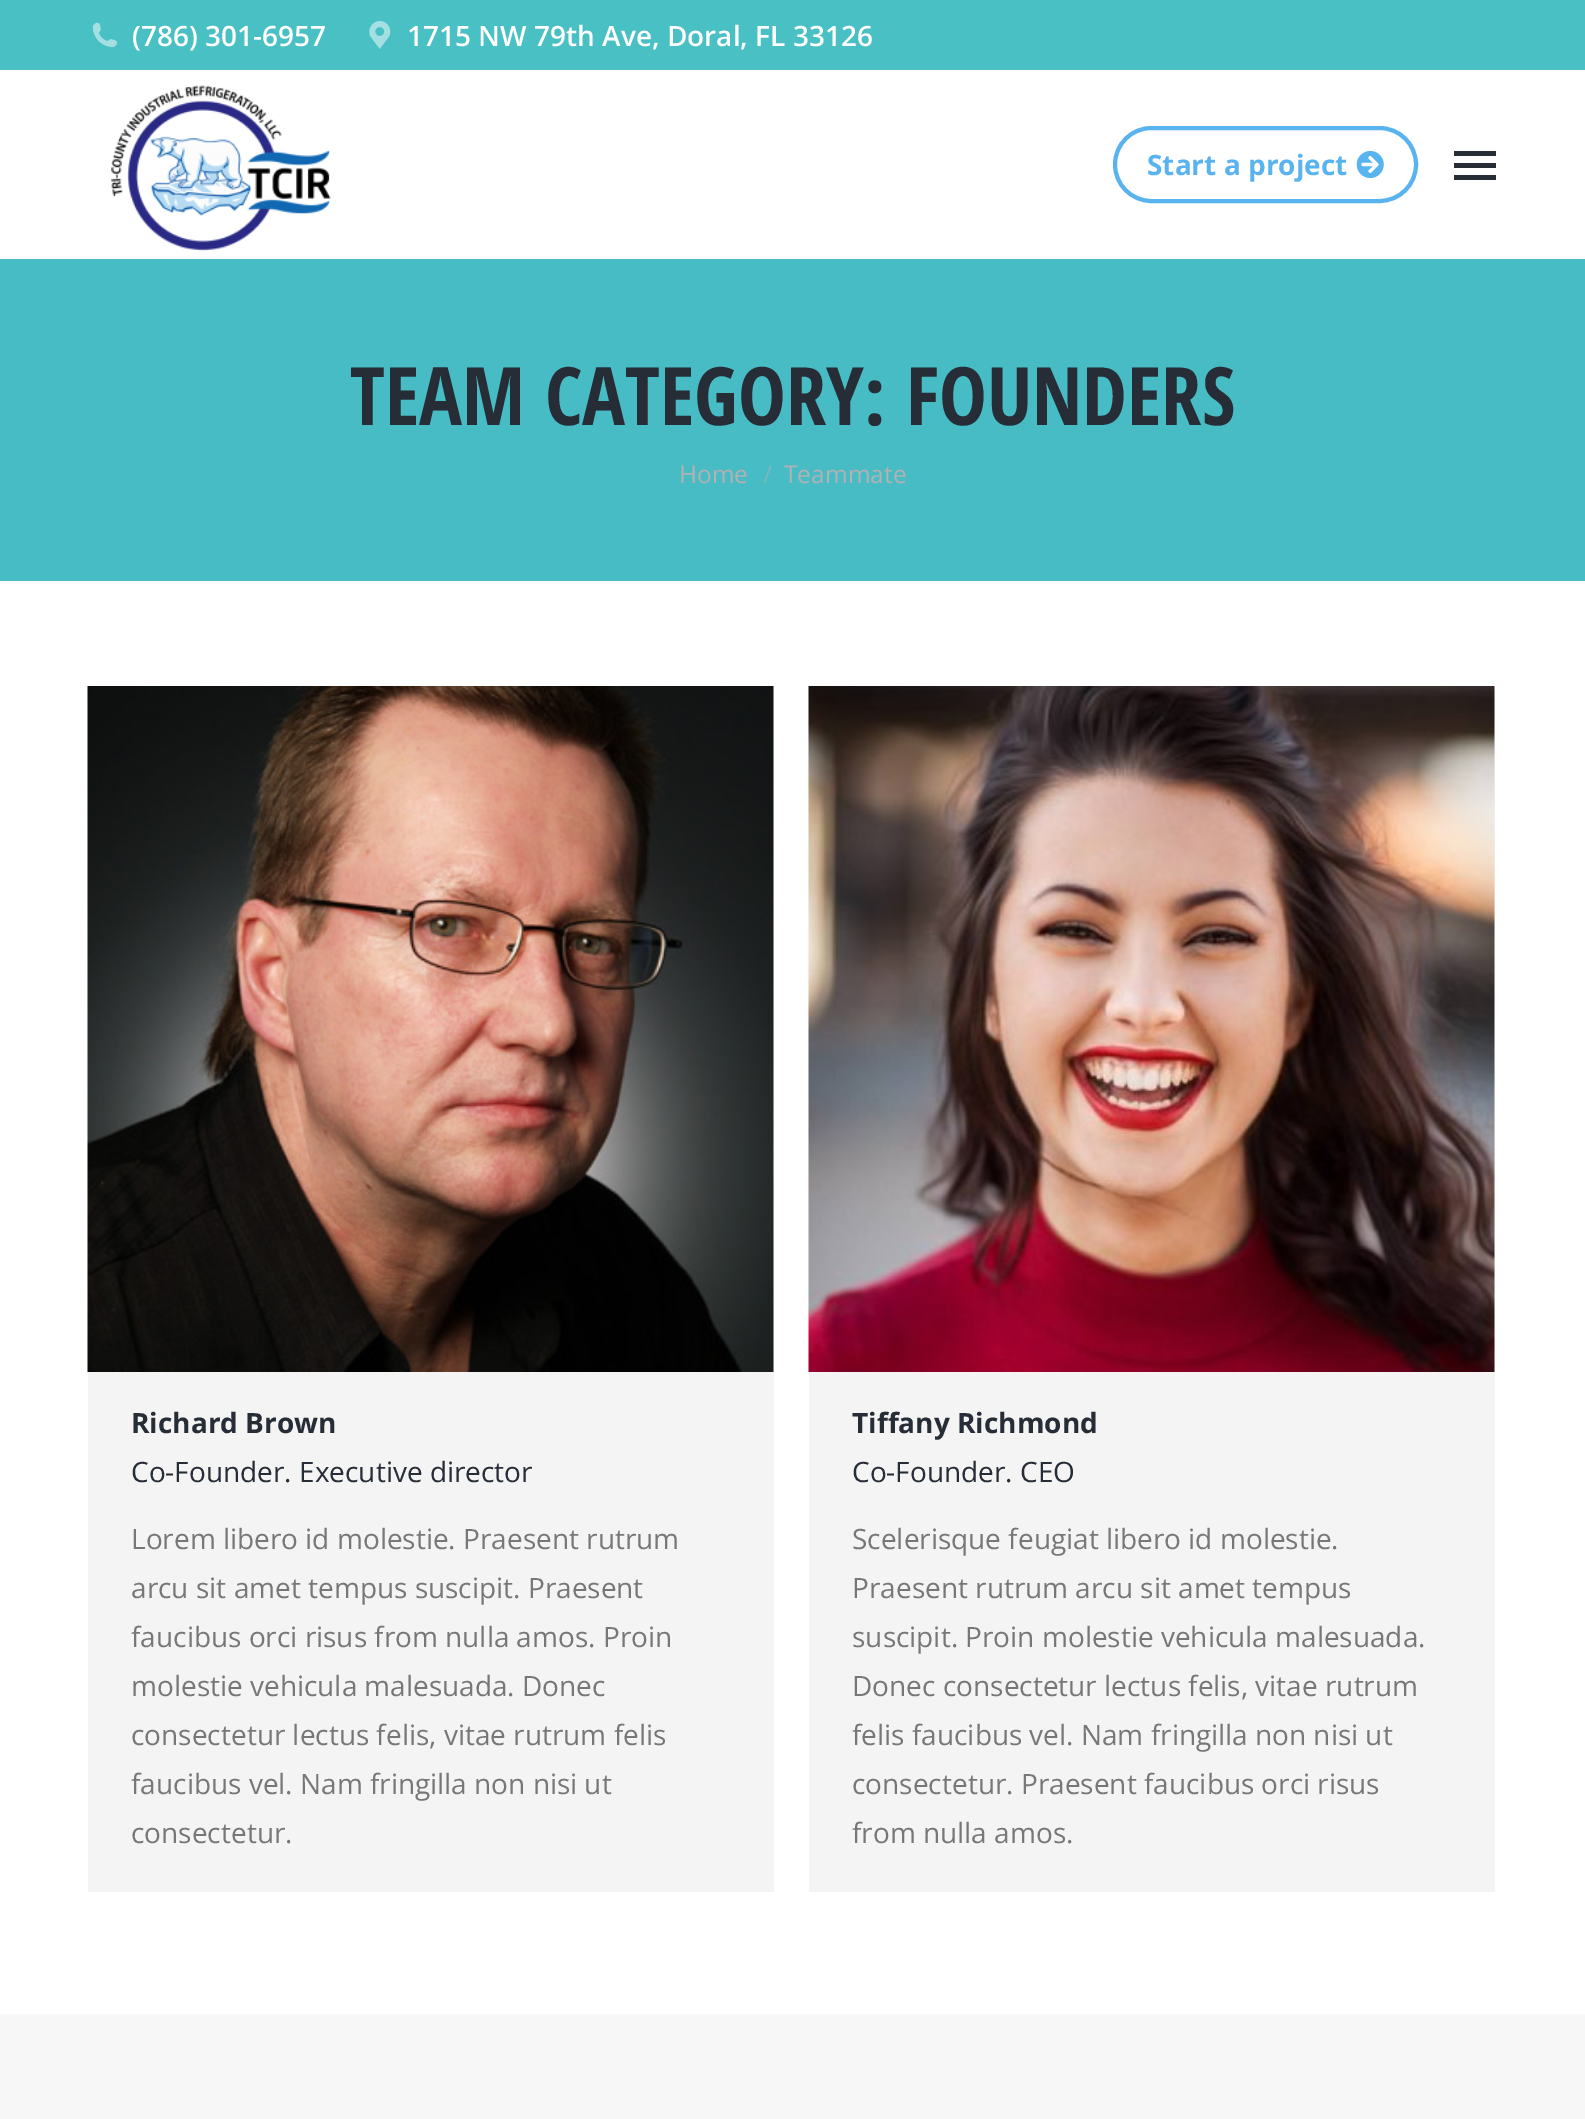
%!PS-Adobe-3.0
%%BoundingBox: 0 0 1585 2119
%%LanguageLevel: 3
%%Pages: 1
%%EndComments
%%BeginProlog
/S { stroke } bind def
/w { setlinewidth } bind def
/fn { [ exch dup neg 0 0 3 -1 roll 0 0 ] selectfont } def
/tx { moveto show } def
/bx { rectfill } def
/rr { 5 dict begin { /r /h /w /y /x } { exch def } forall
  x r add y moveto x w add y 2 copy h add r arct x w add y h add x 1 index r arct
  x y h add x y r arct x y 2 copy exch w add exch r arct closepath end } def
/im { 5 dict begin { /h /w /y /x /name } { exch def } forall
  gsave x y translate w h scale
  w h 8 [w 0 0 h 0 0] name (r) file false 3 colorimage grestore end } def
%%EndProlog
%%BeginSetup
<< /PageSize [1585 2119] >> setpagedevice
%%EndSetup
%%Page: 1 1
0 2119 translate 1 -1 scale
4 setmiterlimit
0.969 setgray
0 0 1585 2119 bx
1 setgray
0 70 1585 1944 bx
0.282 0.753 0.769 setrgbcolor
0 0 1585 70 bx
(image0.raw) 92 22 26 26 im
/OpenSans-SemiBold 28 fn
1 setgray
(\(786\) 301-6957) 132 46 tx
(image1.raw) 369 21 22 28 im
(1715 NW 79th Ave, Doral, FL 33126) 407 46 tx
(image2.raw) 111 85 220 167 im
0.345 0.702 0.937 setrgbcolor
4 w
1115 128 301 73 36.5 rr S
/OpenSans-Bold 28 fn
(Start a project) 1147 175 tx
(image3.raw) 1356 150 28 29 im
0.149 0.176 0.216 setrgbcolor
1454 151 42 5 bx
1454 163 42 5 bx
1454 175 42 5 bx
0.282 0.737 0.769 setrgbcolor
0 259 1585 322 bx
/OpenSansCondensed-Bold 80.5 fn
0.149 0.176 0.216 setrgbcolor
(TEAM CATEGORY: FOUNDERS) 350 425 tx
/OpenSans-Regular 24.5 fn
0.698 setgray
(Home) 679 483 tx
0.49 0.718 0.733 setrgbcolor
(/) 763 483 tx
0.698 setgray
(Teammate) 784 483 tx
0.957 setgray
88 686 686 1206 bx
(image4.raw) 87 686 687 686 im
/OpenSans-Bold 28 fn
0.149 0.176 0.216 setrgbcolor
(Richard Brown) 131 1433 tx
/OpenSans-Regular 28 fn
(Co-Founder. Executive director) 131 1482 tx
0.467 setgray
(Lorem libero id molestie. Praesent rutrum) 131 1549 tx
(arcu sit amet tempus suscipit. Praesent) 131 1598 tx
(faucibus orci risus from nulla amos. Proin) 131 1647 tx
(molestie vehicula malesuada. Donec) 131 1696 tx
(consectetur lectus felis, vitae rutrum felis) 131 1745 tx
(faucibus vel. Nam fringilla non nisi ut) 131 1794 tx
(consectetur.) 131 1843 tx
0.957 setgray
809 686 686 1206 bx
(image5.raw) 808 686 687 686 im
/OpenSans-Bold 28 fn
0.149 0.176 0.216 setrgbcolor
(Tiffany Richmond) 852 1433 tx
/OpenSans-Regular 28 fn
(Co-Founder. CEO) 852 1482 tx
0.467 setgray
(Scelerisque feugiat libero id molestie.) 852 1549 tx
(Praesent rutrum arcu sit amet tempus) 852 1598 tx
(suscipit. Proin molestie vehicula malesuada.) 852 1647 tx
(Donec consectetur lectus felis, vitae rutrum) 852 1696 tx
(felis faucibus vel. Nam fringilla non nisi ut) 852 1745 tx
(consectetur. Praesent faucibus orci risus) 852 1794 tx
(from nulla amos.) 852 1843 tx
showpage
%%EOF
